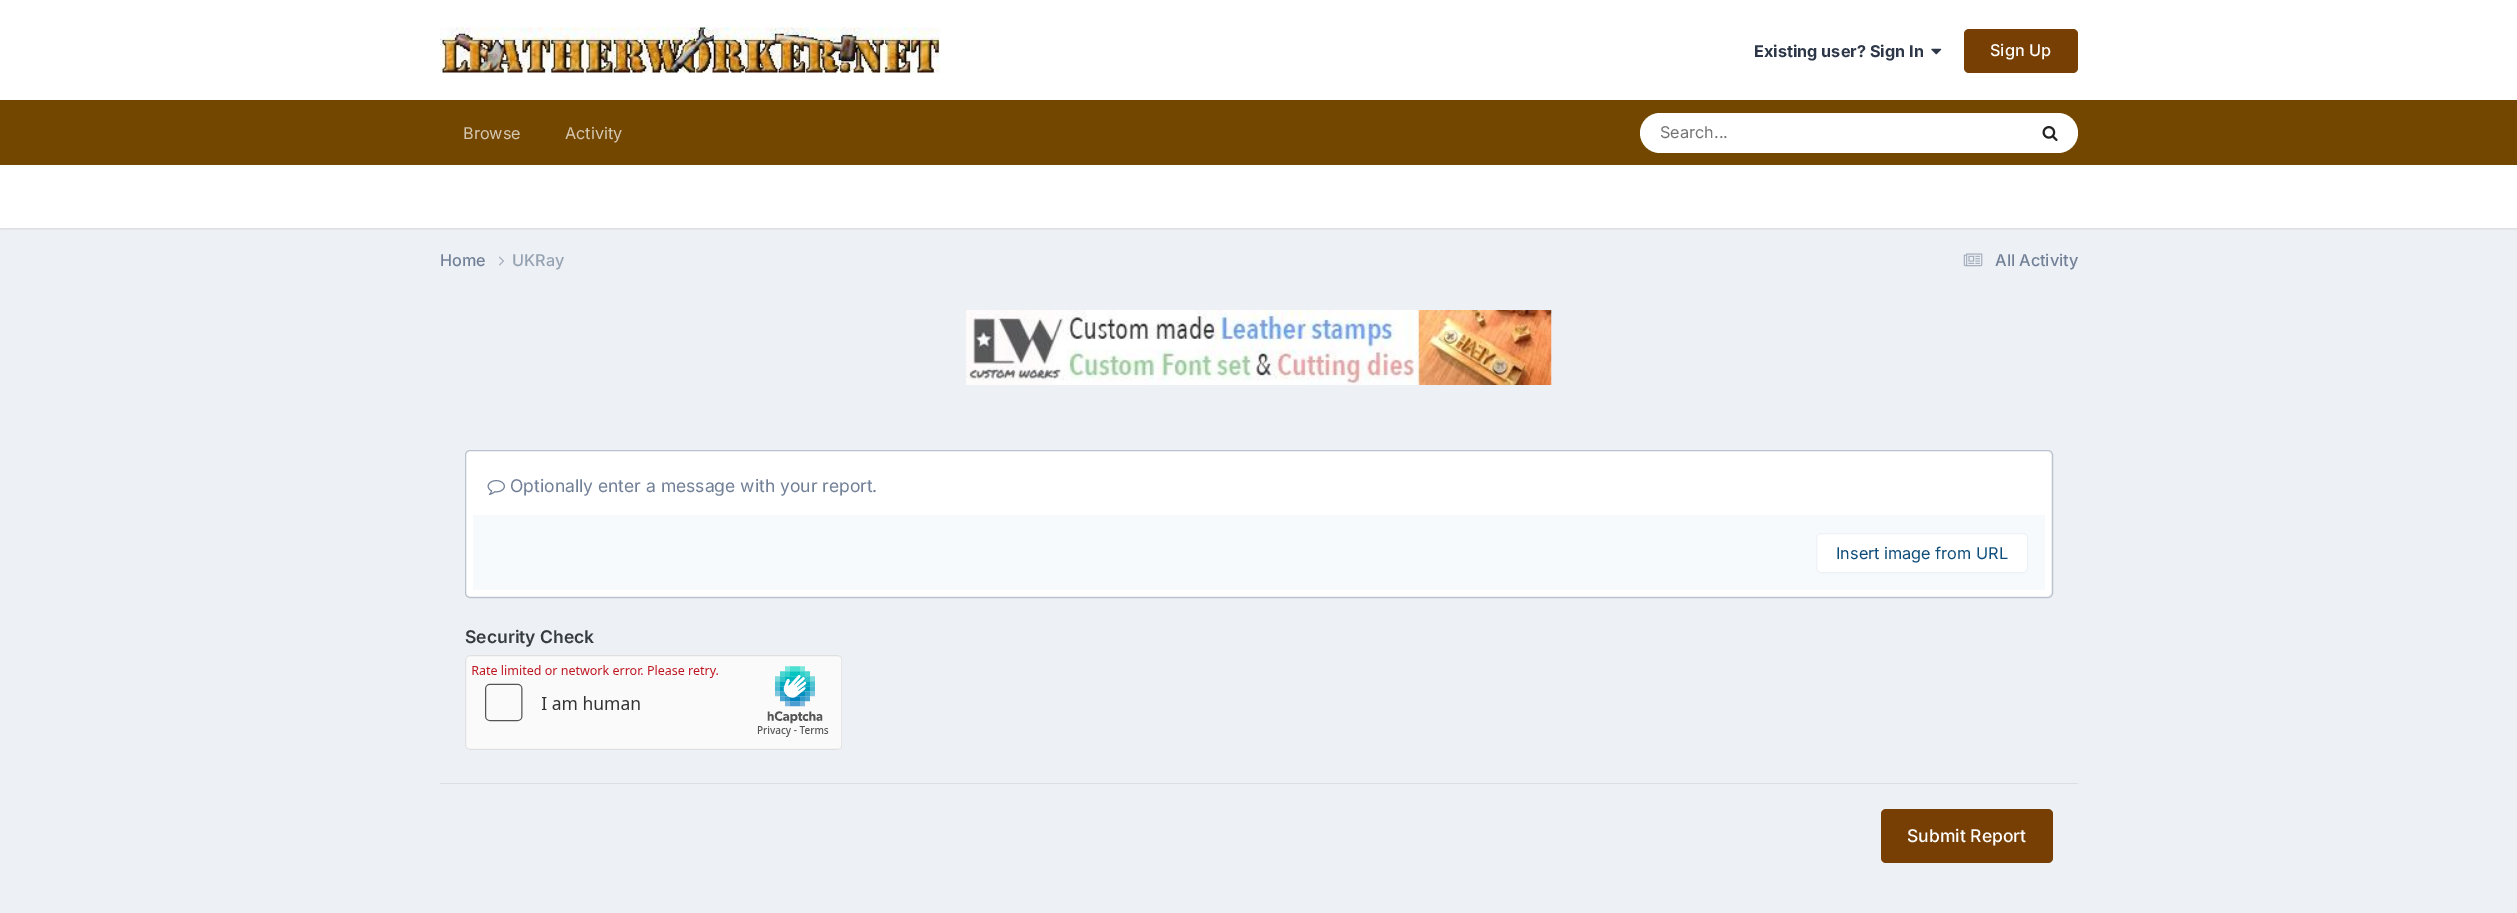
%!PS-Adobe-3.0
%%BoundingBox: 0 0 2517 913
%%LanguageLevel: 3
%%Pages: 1
%%EndComments
%%BeginProlog
/f { fill } bind def
/S { stroke } bind def
/fn { [ exch dup neg 0 0 3 -1 roll 0 0 ] selectfont } def
/tx { moveto show } def
/bx { rectfill } def
/al { dup .setfillconstantalpha .setstrokeconstantalpha } def
/rr { 5 dict begin { /r /h /w /y /x } { exch def } forall
  x r add y moveto x w add y 2 copy h add r arct x w add y h add x 1 index r arct
  x y h add x y r arct x y 2 copy exch w add exch r arct closepath end } def
/sh { 12 dict begin { /a /b /q /h /w /y /x } { exch def } forall gsave /was 0 def
  9 -2 -9 { dup b mul 4 div /e exch def 1 sub .425 mul 2.718 exch exp 1 add a .99 .min exch div /now exch def
    1 1 now sub 1 was sub div sub al /was now def
    w h .min e 2 mul add 0 gt { x e sub y e sub w e 2 mul add h e 2 mul add
      q e add b .6 mul add w h .min 2 div e add .min 0 .max rr fill } if } for grestore end } def
/im { 5 dict begin { /h /w /y /x /name } { exch def } forall
  gsave x y translate w h scale
  w h 8 [w 0 0 h 0 0] name (r) file false 3 colorimage grestore end } def
%%EndProlog
%%BeginSetup
<< /PageSize [2517 913] /PageUsesTransparency true >> setpagedevice
%%EndSetup
%%Page: 1 1
0 .pushpdf14devicefilter
0 913 translate 1 -1 scale
4 setmiterlimit
0.929 0.941 0.957 setrgbcolor
0 0 2517 913 bx
1 setgray
0 0 2517 100 bx
(image0.raw) 440 27 500 46 im
/Inter-Bold 16.25 fn
0.176 0.216 0.282 setrgbcolor
(Existing user? Sign In) 1754 57 tx
(image1.raw) 1931 48 11 7 im
0.471 0.247 0.016 setrgbcolor
1964 29 114 44 5 rr f
/Inter-Medium 16.25 fn
1 setgray
(Sign Up) 1990 56 tx
0.455 0.278 0 setrgbcolor
0 100 2517 65 bx
/Inter-Regular 16.25 fn
0.835 0.784 0.702 setrgbcolor
(Browse) 463 139 tx
(Activity) 565 139 tx
1 setgray
1640 113 438 40 20 rr f
0.459 setgray
(Search...) 1660 138 tx
(image2.raw) 2042 126 16 16 im
0 setgray
0 166 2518 63 0 1 0.1 sh
1 setgray
0 165 2517 63 bx
/Inter-Medium 16.25 fn
0.443 0.502 0.588 setrgbcolor
(Home) 440 266 tx
(image3.raw) 499 256 5 10 im
0.588 0.635 0.698 setrgbcolor
(UKRay) 512 266 tx
(image4.raw) 1963 253 20 14 im
0.443 0.502 0.588 setrgbcolor
(All Activity) 1995 266 tx
(image5.raw) 966 310 586 75 im
1 setgray
466 451 1585 145 4 rr f
0.733 0.765 0.808 setrgbcolor
465.5 450.5 1587 147 4.5 rr S
(image6.raw) 487 480 18 15 im
/Inter-Regular 17.5 fn
0.443 0.502 0.588 setrgbcolor
(Optionally enter a message with your report.) 510 492 tx
0.969 0.98 0.988 setrgbcolor
473 515 1572 75 bx
1 setgray
1816 533 212 40 5 rr f
0.07 al
0.055 0.298 0.475 setrgbcolor
1816.5 533.5 211 39 4.5 rr S
/Inter-Regular 16.25 fn
1 al
(Insert image from URL) 1836 559 tx
/Inter-SemiBold 17.5 fn
0.208 0.235 0.255 setrgbcolor
(Security Check) 465 643 tx
(image7.raw) 465 655 377 95 im
0.855 0.875 0.902 setrgbcolor
440 783 1638 1 bx
0.471 0.247 0.016 setrgbcolor
1881 809 172 54 5 rr f
/Inter-Medium 17.5 fn
1 setgray
(Submit Report) 1907 842 tx
.poppdf14devicefilter showpage
%%EOF
